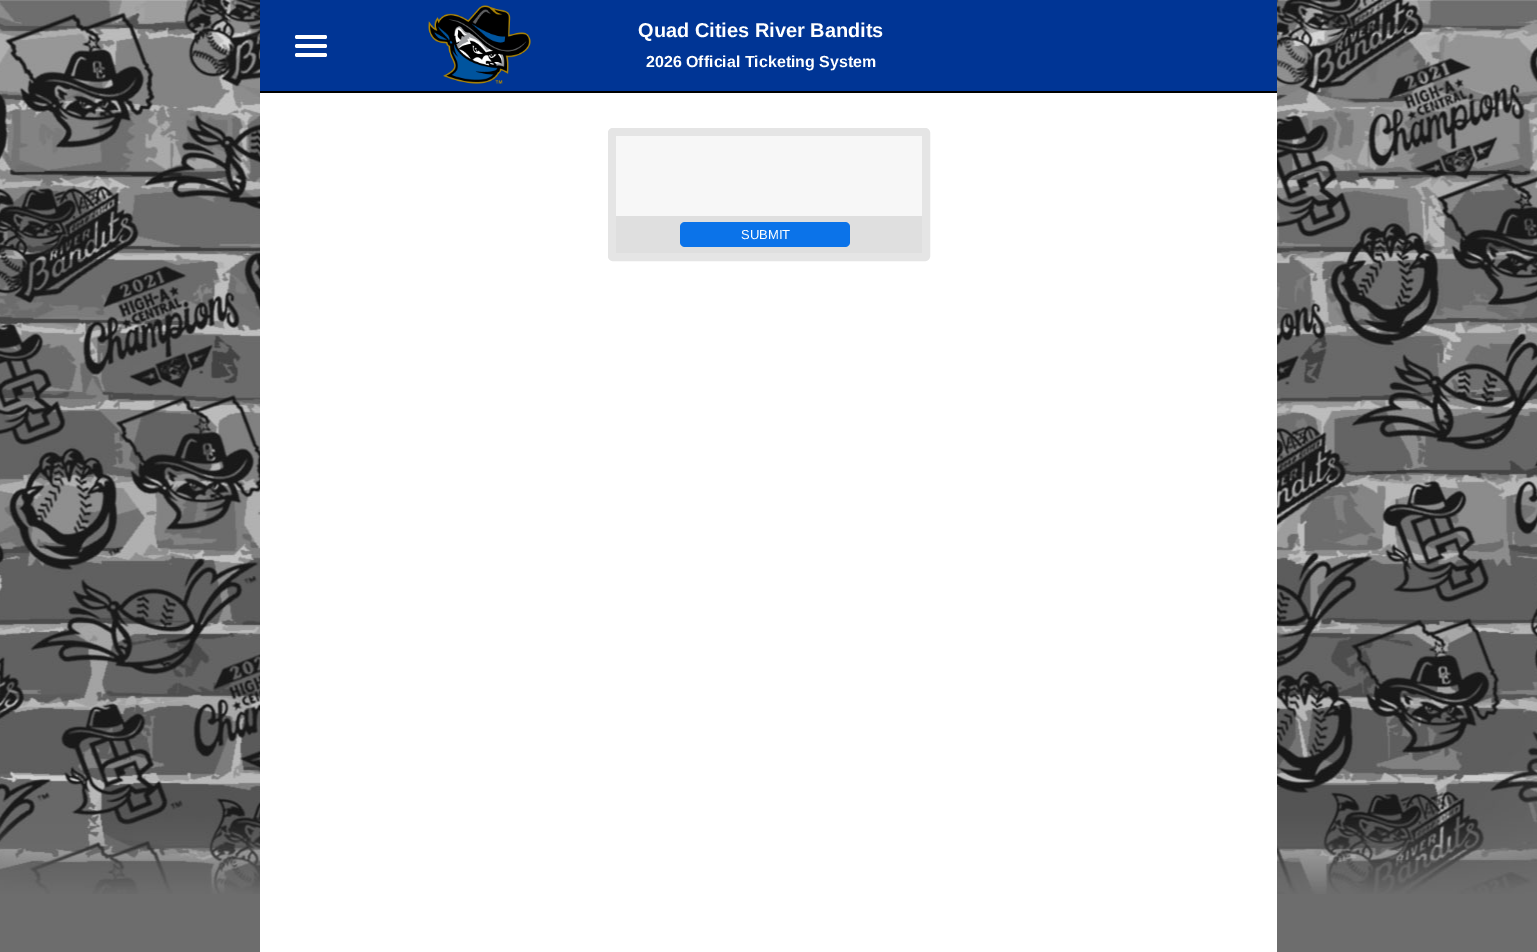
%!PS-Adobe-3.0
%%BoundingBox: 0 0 1537 952
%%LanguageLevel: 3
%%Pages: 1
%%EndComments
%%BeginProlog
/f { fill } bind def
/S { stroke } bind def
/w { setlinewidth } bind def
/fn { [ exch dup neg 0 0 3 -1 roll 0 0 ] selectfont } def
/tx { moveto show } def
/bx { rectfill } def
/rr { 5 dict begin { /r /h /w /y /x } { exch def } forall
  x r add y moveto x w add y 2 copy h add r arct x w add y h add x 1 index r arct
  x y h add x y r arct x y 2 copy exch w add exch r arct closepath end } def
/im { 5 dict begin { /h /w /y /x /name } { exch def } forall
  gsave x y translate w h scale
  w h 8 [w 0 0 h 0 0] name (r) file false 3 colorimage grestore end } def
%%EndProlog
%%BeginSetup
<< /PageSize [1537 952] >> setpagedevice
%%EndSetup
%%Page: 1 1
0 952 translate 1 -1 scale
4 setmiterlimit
0.427 setgray
0 0 1537 952 bx
(image0.raw) 0 0 1537 894 im
1 setgray
260 93 1017 859 bx
0 0.208 0.584 setrgbcolor
260 0 1017 91 bx
0 setgray
260 91 1017 2 bx
1 setgray
295 35 32 4 2 rr f
295 44 32 4 2 rr f
295 53 32 4 2 rr f
(image1.raw) 428 5 103 79 im
/LiberationSans-Bold 20 fn
(Quad Cities River Bandits) 638 37 tx
/LiberationSans-Bold 16 fn
(2026 Official Ticketing System) 646 67 tx
0.898 setgray
8 w
612 132 314 125 1 rr S
0.969 setgray
616 136 306 80 bx
0.875 setgray
616 216 306 37 bx
0.043 0.451 0.914 setrgbcolor
680 222 170 25 5 rr f
/LiberationSans-Regular 13 fn
1 setgray
(SUBMIT) 741 239 tx
showpage
%%EOF
